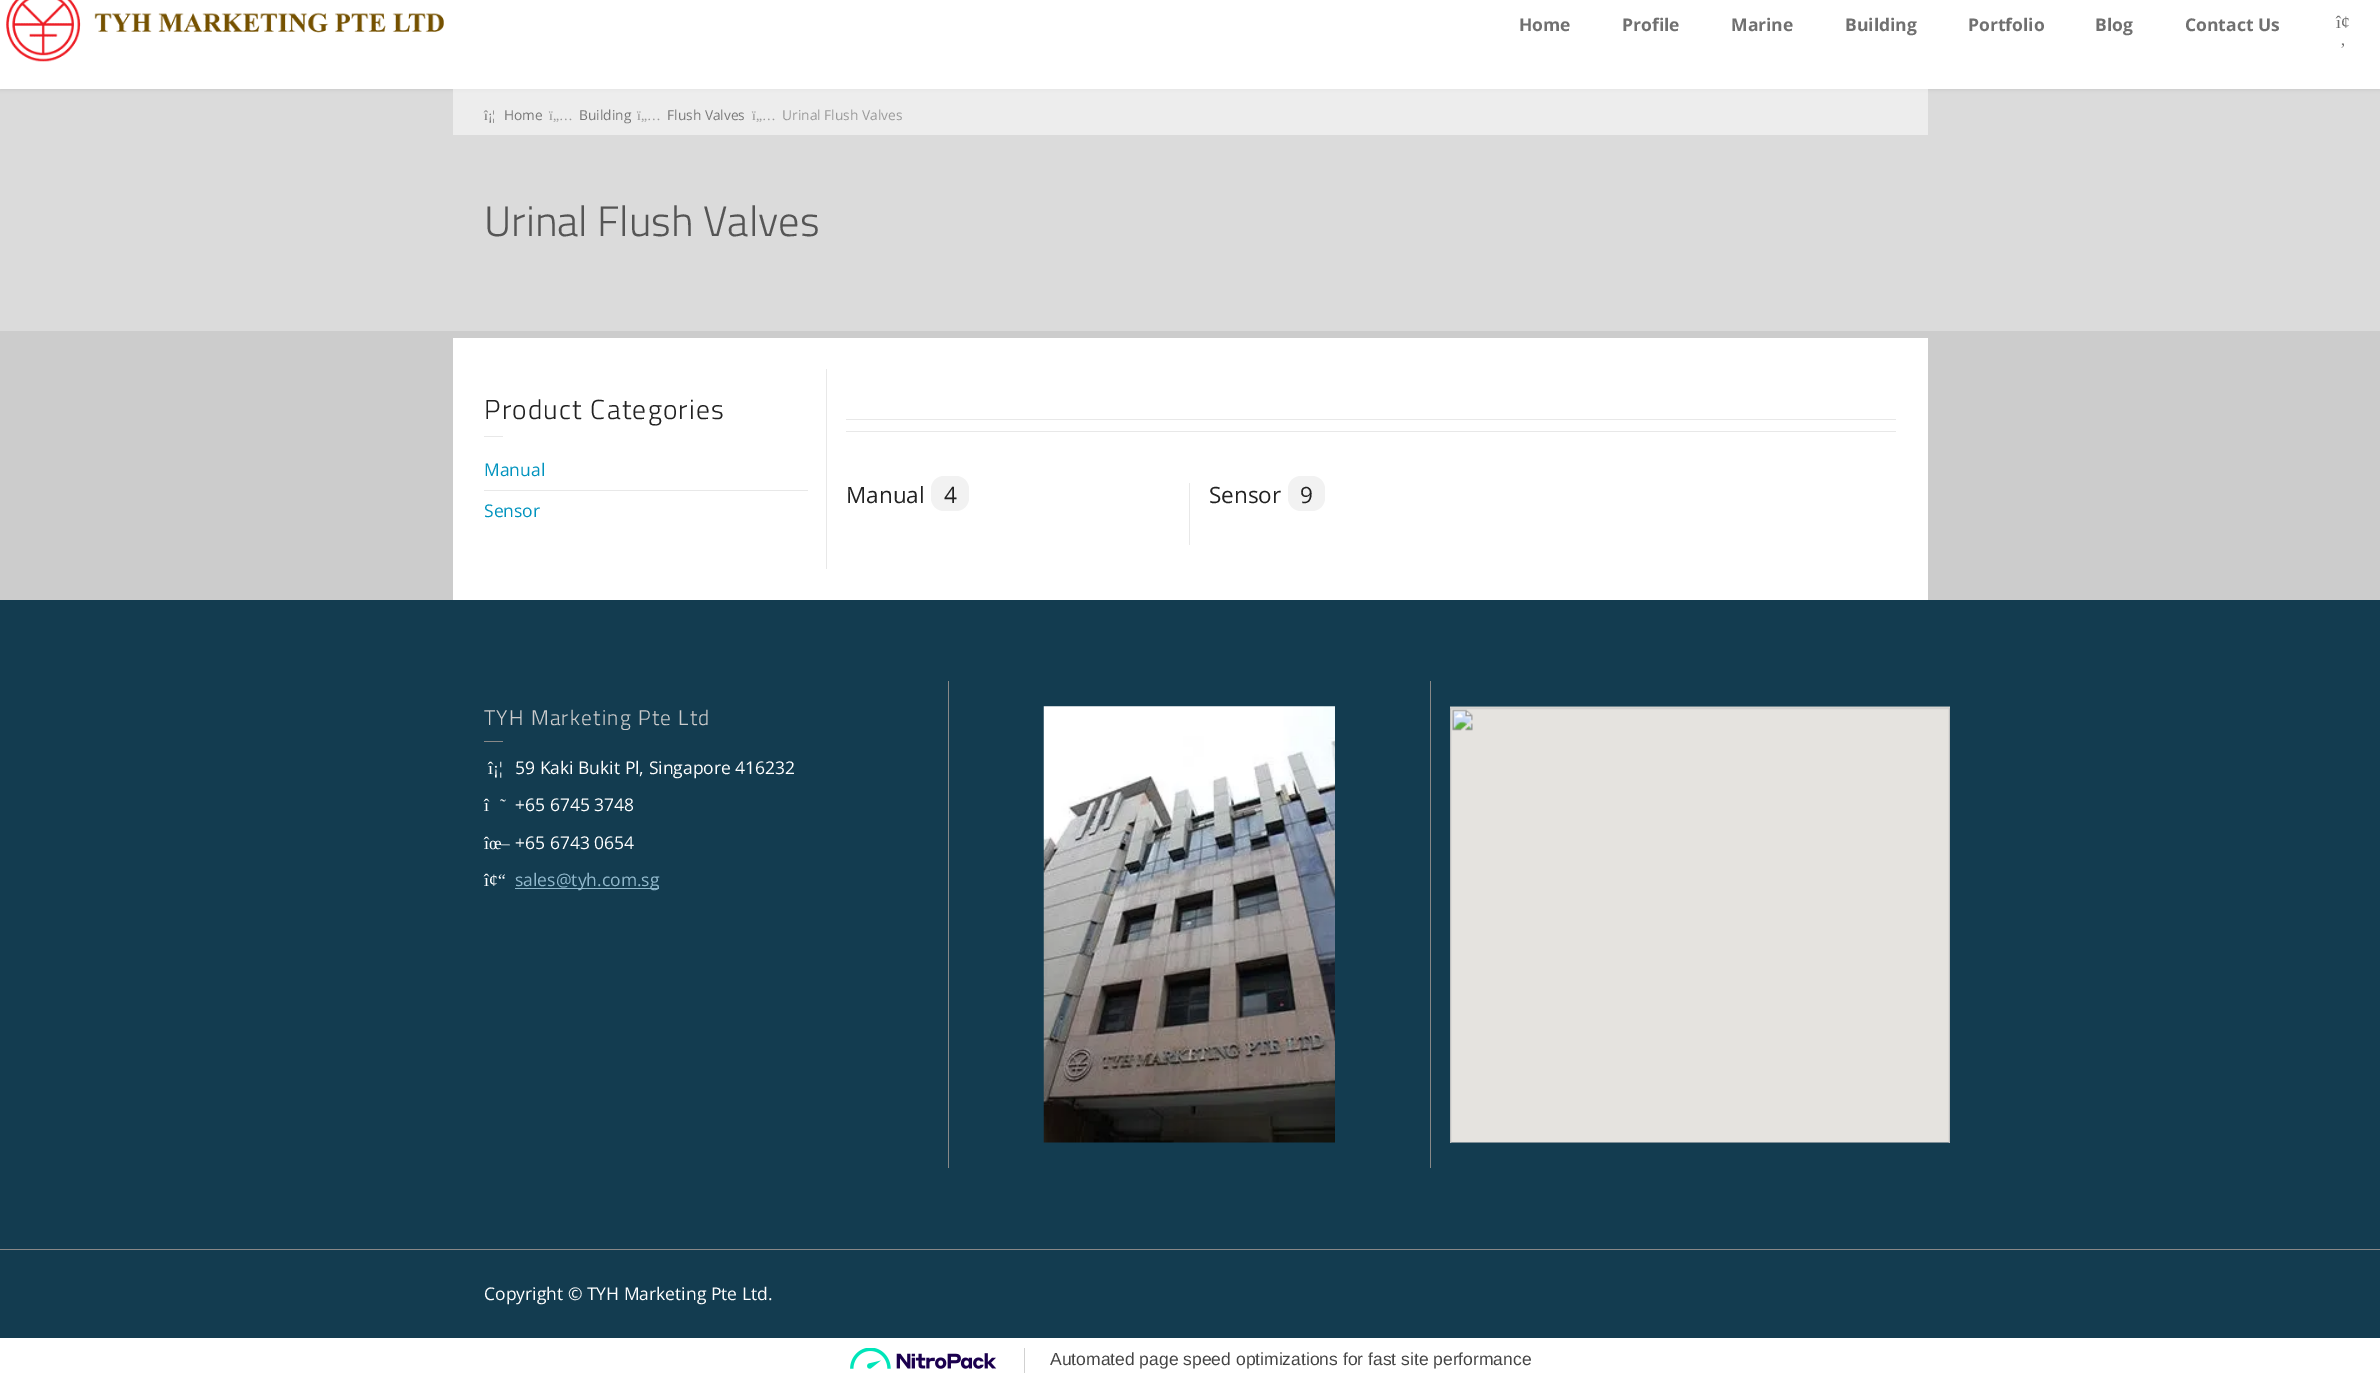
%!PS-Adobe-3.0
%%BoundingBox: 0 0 2380 1373
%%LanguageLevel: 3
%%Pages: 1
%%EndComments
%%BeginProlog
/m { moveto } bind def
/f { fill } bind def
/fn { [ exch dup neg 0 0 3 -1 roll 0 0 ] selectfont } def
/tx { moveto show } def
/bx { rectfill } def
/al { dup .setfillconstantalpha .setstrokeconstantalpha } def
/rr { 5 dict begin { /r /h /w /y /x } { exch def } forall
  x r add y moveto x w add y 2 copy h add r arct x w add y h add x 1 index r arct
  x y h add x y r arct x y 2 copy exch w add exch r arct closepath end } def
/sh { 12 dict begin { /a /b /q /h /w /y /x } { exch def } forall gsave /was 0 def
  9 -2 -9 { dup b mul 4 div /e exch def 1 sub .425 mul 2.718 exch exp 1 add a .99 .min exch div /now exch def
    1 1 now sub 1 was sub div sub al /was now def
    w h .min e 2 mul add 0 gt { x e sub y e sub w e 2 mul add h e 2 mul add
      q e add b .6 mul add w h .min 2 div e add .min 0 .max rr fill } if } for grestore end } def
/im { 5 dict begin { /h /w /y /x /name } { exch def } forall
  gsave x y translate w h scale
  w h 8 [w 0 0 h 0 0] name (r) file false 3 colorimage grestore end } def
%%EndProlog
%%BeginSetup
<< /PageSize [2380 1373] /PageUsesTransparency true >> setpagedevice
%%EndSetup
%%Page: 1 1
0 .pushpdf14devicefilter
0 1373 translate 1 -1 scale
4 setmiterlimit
0.8 setgray
0 0 2380 1373 bx
0 setgray
0 -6 2380 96 0 2 0.12 sh
1 setgray
0 0 2380 89 bx
(image0.raw) 6 0 438 62 im
/OpenSans-Bold 17.5 fn
0.439 setgray
(Home) 1519 31 tx
(Profile) 1622 31 tx
(Marine) 1731 31 tx
(Building) 1845 31 tx
(Portfolio) 1968 31 tx
(Blog) 2095 31 tx
(Contact Us) 2185 31 tx
/LiberationSerif-Regular 17.5 fn
(î¢) 2336 28 tx
(‚) 2340 45 tx
0.3 al
1 setgray
0 89 2380 242 bx
0.5 al
453 89 1475 46 bx
/LiberationSerif-Regular 13.75 fn
1 al
0.467 setgray
(î¡¦) 484 120 tx
/OpenSans-Regular 13.75 fn
(Home) 504 120 tx
/LiberationSerif-Regular 13.75 fn
0.6 setgray
(ï„…) 549 120 tx
/OpenSans-Regular 13.75 fn
0.467 setgray
(Building) 579 120 tx
/LiberationSerif-Regular 13.75 fn
0.6 setgray
(ï„…) 637 120 tx
/OpenSans-Regular 13.75 fn
0.467 setgray
(Flush Valves) 667 120 tx
/LiberationSerif-Regular 13.75 fn
0.6 setgray
(ï„…) 752 120 tx
/OpenSans-Regular 13.75 fn
(Urinal Flush Valves) 782 120 tx
/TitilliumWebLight-Light 42.5 fn
0.333 setgray
(Urinal Flush Valves) 484 236 tx
1 setgray
453 338 1475 262 bx
0.91 setgray
826 369 1 200 bx
/TitilliumWebLight-Light 27.5 fn
0.133 setgray
484 419 m 1.25 0 (Product Categories) ashow
0.91 setgray
484 436 19 1 bx
484 490 324 1 bx
/OpenSans-Regular 17.5 fn
0 0.576 0.745 setrgbcolor
(Manual) 484 476 tx
(Sensor) 484 517 tx
0.91 setgray
846 431 1050 1 bx
846 419 1050 1 bx
/OpenSans-Regular 22.5 fn
0.133 setgray
(Manual) 846 503 tx
0.949 setgray
931 476 38 35 13 rr f
0.133 setgray
(4) 944 503 tx
0.91 setgray
1189 483 1 62 bx
0.133 setgray
(Sensor) 1209 503 tx
0.949 setgray
1288 476 37 35 13 rr f
0.133 setgray
(9) 1300 503 tx
0.075 0.235 0.314 setrgbcolor
0 600 2380 649 bx
/TitilliumWebLight-Light 21.25 fn
0.8 setgray
484 725 m 1.25 0 (TYH Marketing Pte Ltd) ashow
0.533 setgray
484 741 19 1 bx
/LiberationSerif-Regular 17.5 fn
1 setgray
(î¡¦) 488 774 tx
/OpenSans-Regular 17.5 fn
(59 Kaki Bukit Pl, Singapore 416232) 515 774 tx
/LiberationSerif-Regular 17.5 fn
(î) 484 811 tx
(˜) 500 811 tx
/OpenSans-Regular 17.5 fn
(+65 6745 3748) 515 811 tx
/LiberationSerif-Regular 17.5 fn
(îœ–) 484 849 tx
/OpenSans-Regular 17.5 fn
(+65 6743 0654) 515 849 tx
/LiberationSerif-Regular 17.5 fn
(î¢“) 484 886 tx
0.565 0.722 0.8 setrgbcolor
515 888 144 1 bx
/OpenSans-Regular 17.5 fn
(sales@tyh.com.sg) 515 886 tx
0.533 setgray
948 681 1 487 bx
(image1.raw) 1043 706 292 437 im
1430 681 1 487 bx
(image2.raw) 1450 706 500 437 im
0.075 0.235 0.314 setrgbcolor
0 1250 2380 88 bx
0.533 setgray
0 1249 2380 1 bx
1 setgray
(Copyright © TYH Marketing Pte Ltd.) 484 1300 tx
0 1338 2380 35 bx
0.82 setgray
1024 1348 1 25 bx
(image3.raw) 850 1348 147 21 im
/LiberationSans-Regular 17.5 fn
0.271 setgray
(Automated page speed optimizations for fast site performance) 1050 1365 tx
.poppdf14devicefilter showpage
%%EOF
